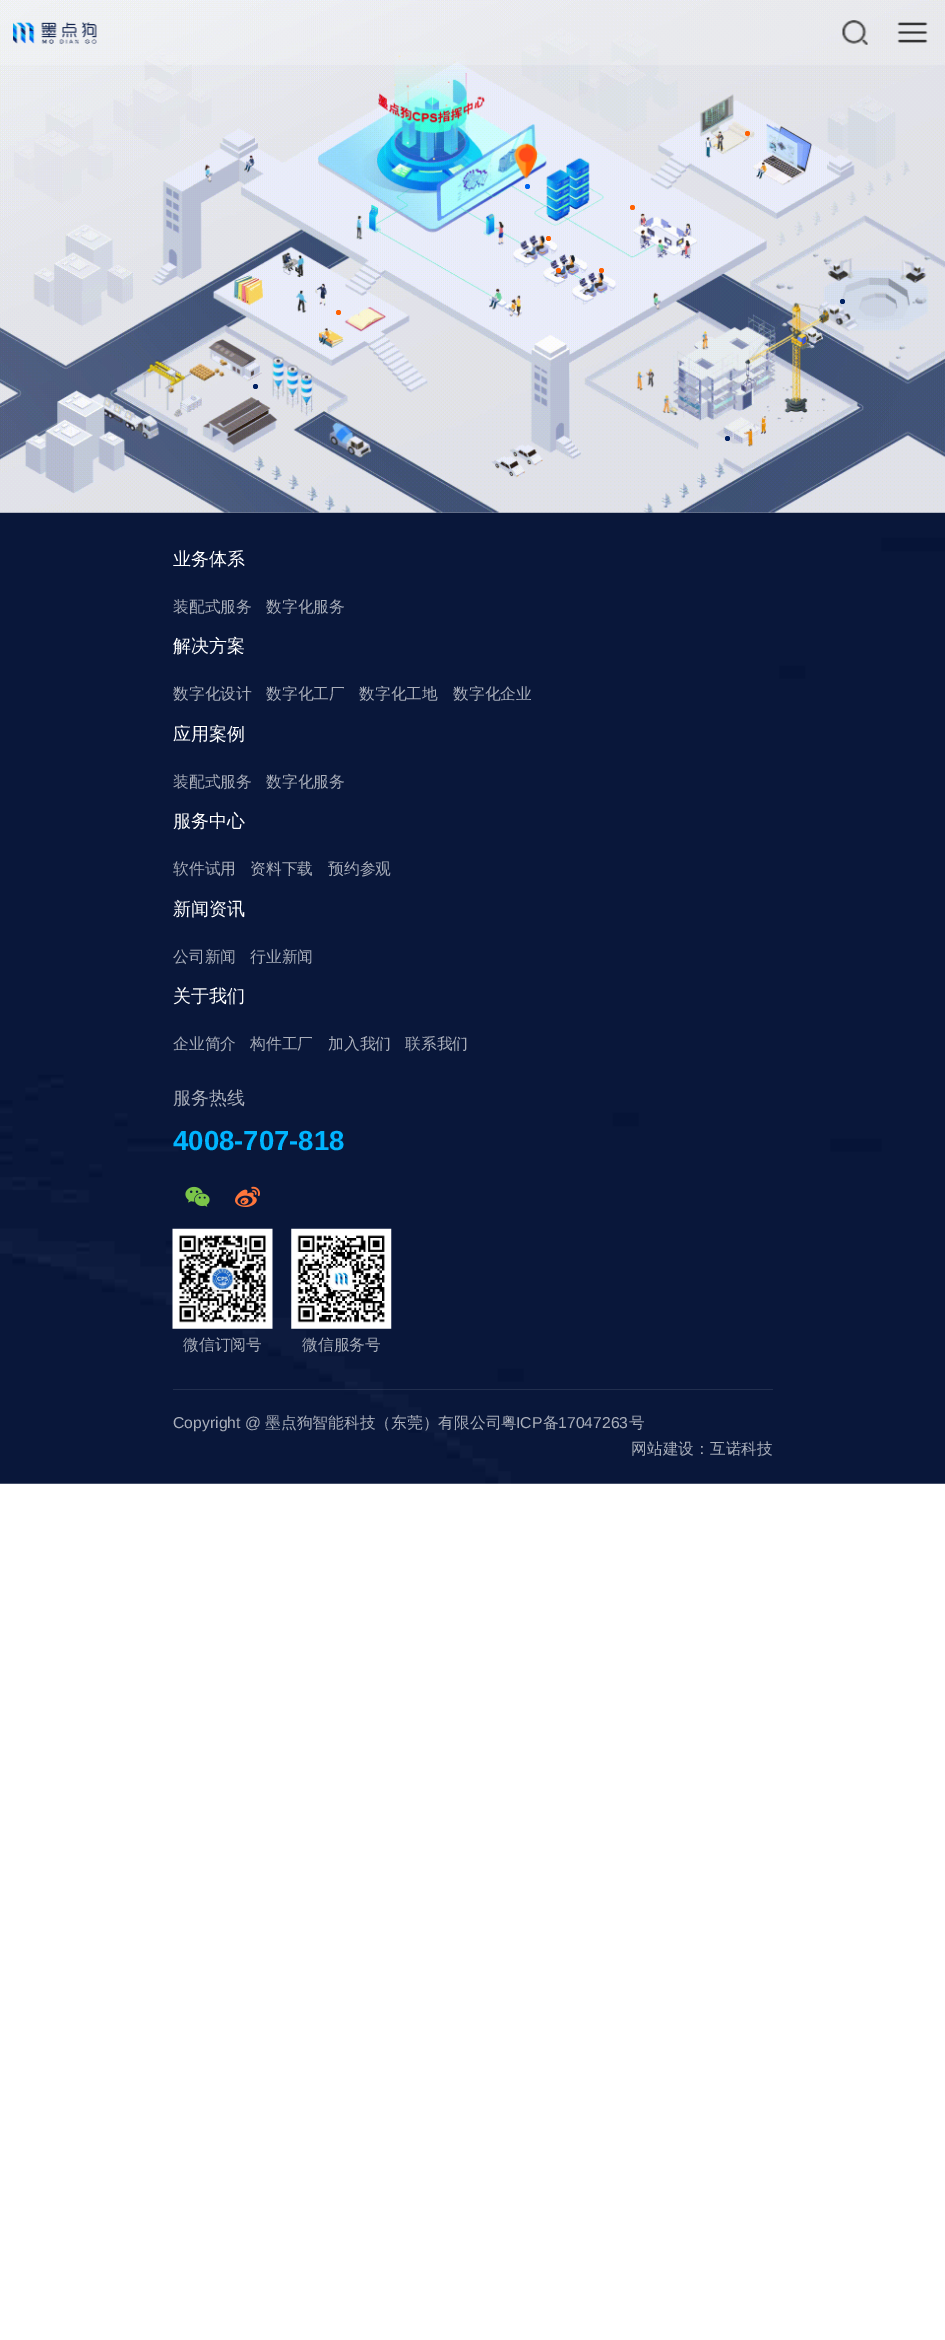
%!PS-Adobe-3.0
%%BoundingBox: 0 0 945 2340
%%LanguageLevel: 3
%%Pages: 1
%%EndComments
%%BeginProlog
/f { fill } bind def
/fn { [ exch dup neg 0 0 3 -1 roll 0 0 ] selectfont } def
/tx { moveto show } def
/bx { rectfill } def
/al { dup .setfillconstantalpha .setstrokeconstantalpha } def
/ci { newpath 0 360 arc closepath } def
/im { 5 dict begin { /h /w /y /x /name } { exch def } forall
  gsave x y translate w h scale
  w h 8 [w 0 0 h 0 0] name (r) file false 3 colorimage grestore end } def
%%EndProlog
%%BeginSetup
<< /PageSize [945 2340] /PageUsesTransparency true >> setpagedevice
%%EndSetup
%%Page: 1 1
0 .pushpdf14devicefilter
0 2340 translate 1 -1 scale
4 setmiterlimit
1 setgray
0 0 945 2340 bx
(image5.raw) 0 512 945 972 im
(image0.raw) 0 0 945 513 im
1 0.384 0.008 setrgbcolor
747.5 133.5 2.5 ci f
(image1.raw) 514 135 25 45 im
0 0.396 0.937 setrgbcolor
527.5 186.5 2.5 ci f
1 0.384 0.008 setrgbcolor
632.5 207.5 2.5 ci f
548.5 238.5 2.5 ci f
558.5 270.5 2.5 ci f
601.5 270.5 2.5 ci f
0 0.125 0.38 setrgbcolor
842.5 301.5 2.5 ci f
1 0.384 0.008 setrgbcolor
338.5 312.5 2.5 ci f
0 0.125 0.38 setrgbcolor
255.5 386.5 2.5 ci f
727.5 438.5 2.5 ci f
0.2 al
1 setgray
0 0 945 65 bx
1 al
(image2.raw) 13 22 84 22 im
(image3.raw) 842 20 26 25 im
(image4.raw) 897 22 31 21 im
0.1 al
173 1389 600 1 bx
/WenQuanYiZenHei-Medium 18 fn
1 al
(业务体系) 173 565 tx
/WenQuanYiZenHei-Medium 15.75 fn
0.663 0.682 0.729 setrgbcolor
(装配式服务) 173 612 tx
(数字化服务) 266 612 tx
/WenQuanYiZenHei-Medium 18 fn
1 setgray
(解决方案) 173 652 tx
/WenQuanYiZenHei-Medium 15.75 fn
0.663 0.682 0.729 setrgbcolor
(数字化设计) 173 699 tx
(数字化工厂) 266 699 tx
(数字化工地) 359 699 tx
(数字化企业) 453 699 tx
/WenQuanYiZenHei-Medium 18 fn
1 setgray
(应用案例) 173 740 tx
/WenQuanYiZenHei-Medium 15.75 fn
0.663 0.682 0.729 setrgbcolor
(装配式服务) 173 787 tx
(数字化服务) 266 787 tx
/WenQuanYiZenHei-Medium 18 fn
1 setgray
(服务中心) 173 827 tx
/WenQuanYiZenHei-Medium 15.75 fn
0.663 0.682 0.729 setrgbcolor
(软件试用) 173 874 tx
(资料下载) 250 874 tx
(预约参观) 328 874 tx
/WenQuanYiZenHei-Medium 18 fn
1 setgray
(新闻资讯) 173 915 tx
/WenQuanYiZenHei-Medium 15.75 fn
0.663 0.682 0.729 setrgbcolor
(公司新闻) 173 962 tx
(行业新闻) 250 962 tx
/WenQuanYiZenHei-Medium 18 fn
1 setgray
(关于我们) 173 1002 tx
/WenQuanYiZenHei-Medium 15.75 fn
0.663 0.682 0.729 setrgbcolor
(企业简介) 173 1049 tx
(构件工厂) 250 1049 tx
(加入我们) 328 1049 tx
(联系我们) 405 1049 tx
/WenQuanYiZenHei-Medium 18 fn
(服务热线) 173 1104 tx
/LiberationSans-Bold 27.5 fn
0 0.71 1 setrgbcolor
(4008-707-818) 173 1150 tx
(image6.raw) 185 1186 25 21 im
(image7.raw) 235 1186 25 21 im
(image8.raw) 172 1228 101 101 im
/WenQuanYiZenHei-Medium 15.75 fn
0.663 0.682 0.729 setrgbcolor
(微信订阅号) 183 1350 tx
(image9.raw) 291 1228 101 101 im
(微信服务号) 302 1350 tx
/LiberationSans-Regular 15.75 fn
(Copyright @) 173 1428 tx
/WenQuanYiZenHei-Medium 15.75 fn
(墨点狗智能科技（东莞）有限公司粤) 265 1428 tx
/LiberationSans-Regular 15.75 fn
(ICP) 516 1428 tx
/WenQuanYiZenHei-Medium 15.75 fn
(备) 543 1428 tx
/LiberationSans-Regular 15.75 fn
(17047263) 558 1428 tx
/WenQuanYiZenHei-Medium 15.75 fn
(号) 629 1428 tx
(网站建设：互诺科技) 631 1454 tx
.poppdf14devicefilter showpage
%%EOF
